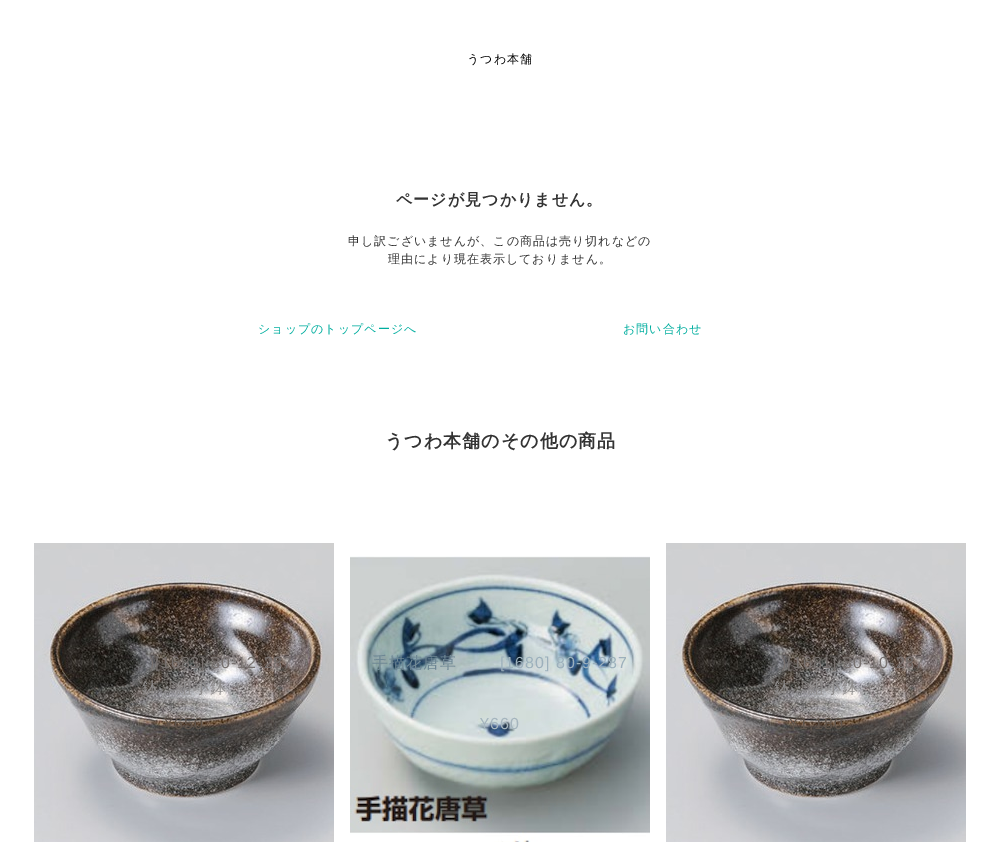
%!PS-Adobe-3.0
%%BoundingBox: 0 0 1000 842
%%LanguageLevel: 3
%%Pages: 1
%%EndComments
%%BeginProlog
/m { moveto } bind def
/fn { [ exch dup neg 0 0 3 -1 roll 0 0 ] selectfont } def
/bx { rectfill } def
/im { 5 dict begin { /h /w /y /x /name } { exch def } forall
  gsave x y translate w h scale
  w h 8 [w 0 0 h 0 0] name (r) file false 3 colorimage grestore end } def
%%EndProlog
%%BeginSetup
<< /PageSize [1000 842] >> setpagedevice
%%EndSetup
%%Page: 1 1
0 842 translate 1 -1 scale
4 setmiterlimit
1 setgray
0 0 1000 842 bx
/WenQuanYiZenHei-Medium 12 fn
0 setgray
467 63 m 1 0 (うつわ本舗) ashow
/WenQuanYiZenHei-Bold 16 fn
0.2 setgray
396 205 m 1 0 (ページが見つかりません。) ashow
/WenQuanYiZenHei-Medium 12 fn
348 245 m 1 0 (申し訳ございませんが、この商品は売り切れなどの) ashow
388 263 m 1 0 (理由により現在表示しておりません。) ashow
0 0.682 0.624 setrgbcolor
258 333 m 1 0 (ショップのトップページへ) ashow
623 333 m 1 0 (お問い合わせ) ashow
/WenQuanYiZenHei-Bold 18 fn
0.2 setgray
385 447 m 1 0 (うつわ本舗のその他の商品) ashow
(image0.raw) 34 543 300 299 im
/LiberationSans-Regular 16 fn
0.467 0.443 0.435 setrgbcolor
149 668 m 1 0 (\)[1683] 80-12-287) ashow
/WenQuanYiZenHei-Medium 16 fn
0.557 0.549 0.549 setrgbcolor
142 693 m 1 0 (鉢・組小鉢) ashow
/LiberationSans-Regular 16 fn
0.376 0.333 0.298 setrgbcolor
164 729 m 1 0 (¥650) ashow
(image1.raw) 350 556 300 286 im
/WenQuanYiZenHei-Medium 16 fn
0.431 0.529 0.58 setrgbcolor
372 668 m 1 0 (手描花唐草) ashow
/LiberationSans-Regular 16 fn
0.612 0.69 0.737 setrgbcolor
500 668 m 1 0 ([1680] 80-9-287) ashow
0.647 0.71 0.745 setrgbcolor
480 729 m 1 0 (¥660) ashow
(image0.raw) 666 543 300 299 im
0.467 0.443 0.435 setrgbcolor
781 668 m 1 0 (\)[1681] 80-10-287) ashow
/WenQuanYiZenHei-Medium 16 fn
0.557 0.549 0.549 setrgbcolor
774 693 m 1 0 (鉢・組小鉢) ashow
/LiberationSans-Regular 16 fn
0.376 0.333 0.298 setrgbcolor
789 729 m 1 0 (¥1,180) ashow
showpage
%%EOF
